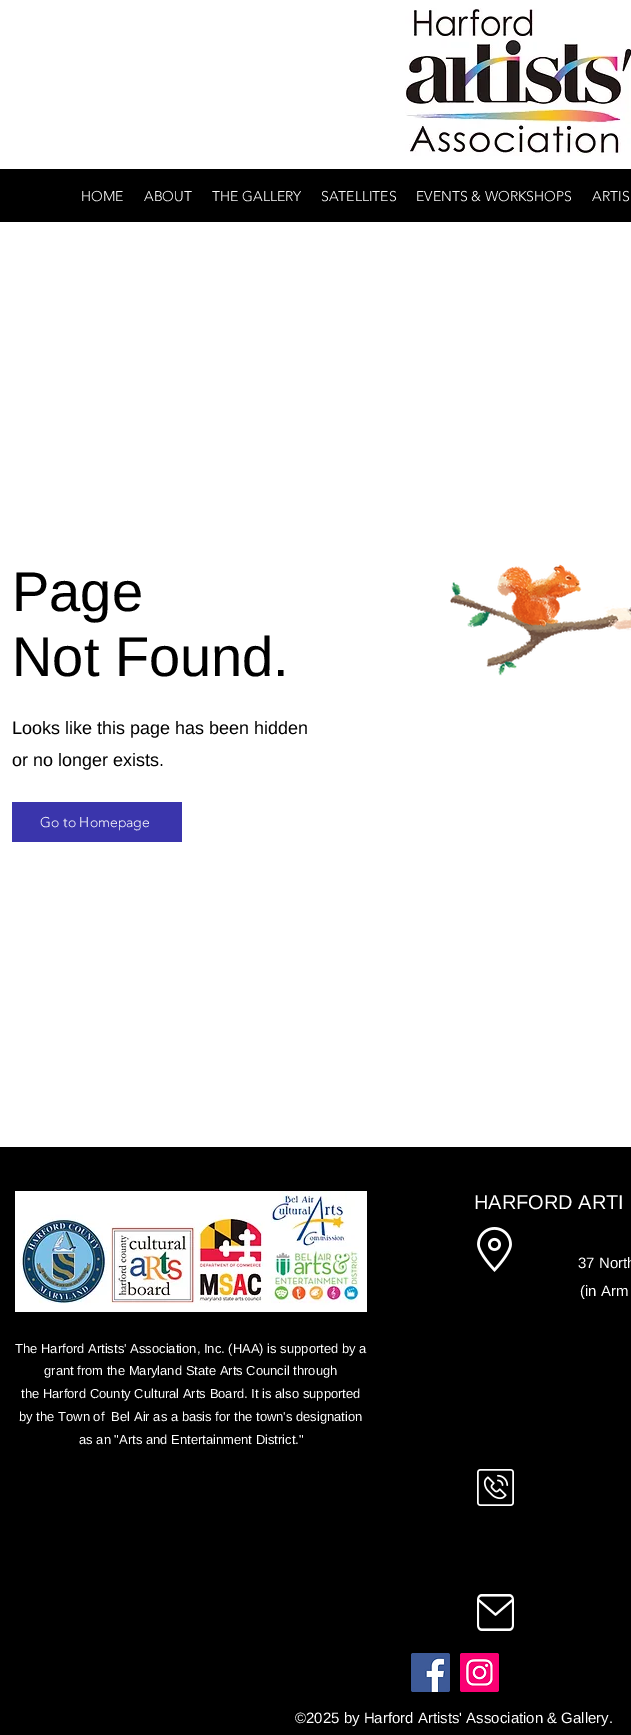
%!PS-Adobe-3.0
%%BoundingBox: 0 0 631 1735
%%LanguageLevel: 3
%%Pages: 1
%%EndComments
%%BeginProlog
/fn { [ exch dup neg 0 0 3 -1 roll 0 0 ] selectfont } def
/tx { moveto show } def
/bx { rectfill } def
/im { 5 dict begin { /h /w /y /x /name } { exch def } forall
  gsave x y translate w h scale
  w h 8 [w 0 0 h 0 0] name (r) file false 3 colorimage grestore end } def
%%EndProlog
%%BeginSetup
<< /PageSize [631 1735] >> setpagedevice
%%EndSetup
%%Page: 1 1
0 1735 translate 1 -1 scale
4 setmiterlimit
1 setgray
0 0 631 1735 bx
(image0.raw) 405 8 226 148 im
0 setgray
0 169 631 53 bx
/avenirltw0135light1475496-Light 14 fn
1 setgray
(HOME) 81 201 tx
(ABOUT) 144 201 tx
(THE GALLERY) 212 201 tx
(SATELLITES) 321 201 tx
(EVENTS & WORKSHOPS) 416 201 tx
(ARTIS) 592 201 tx
/LiberationSans-Regular 56 fn
0 setgray
(Page) 12 611 tx
(Not Found.) 12 676 tx
(image1.raw) 450 564 181 112 im
/LiberationSans-Regular 18 fn
(Looks like this page has been hidden) 12 734 tx
(or no longer exists.) 12 766 tx
0.227 0.208 0.675 setrgbcolor
12 802 170 40 bx
/avenirltw0135light1475496-Light 14 fn
1 setgray
(Go to Homepage) 40 827 tx
0 setgray
0 1147 631 588 bx
(image2.raw) 15 1191 352 121 im
/LiberationSans-Regular 20 fn
1 setgray
(HARFORD ARTI) 474 1209 tx
(image3.raw) 477 1227 35 45 im
/LiberationSans-Regular 15 fn
(37 North) 578 1268 tx
(\(in Arm) 580 1296 tx
/LiberationSans-Regular 13 fn
(The Harford Artists' Association, Inc. \(HAA\) is supported by a) 15 1353 tx
(grant from the Maryland State Arts Council through) 44 1375 tx
(the Harford County Cultural Arts Board. It is also supported) 21 1398 tx
(by the Town of  Bel Air as a basis for the town's designation) 19 1421 tx
(as an "Arts and Entertainment District.") 79 1444 tx
(image4.raw) 477 1469 37 37 im
(image5.raw) 477 1594 37 37 im
(image6.raw) 411 1653 39 39 im
(image7.raw) 460 1653 39 39 im
/LiberationSans-Regular 15 fn
(©2025 by Harford Artists' Association & Gallery.) 295 1723 tx
showpage
%%EOF
